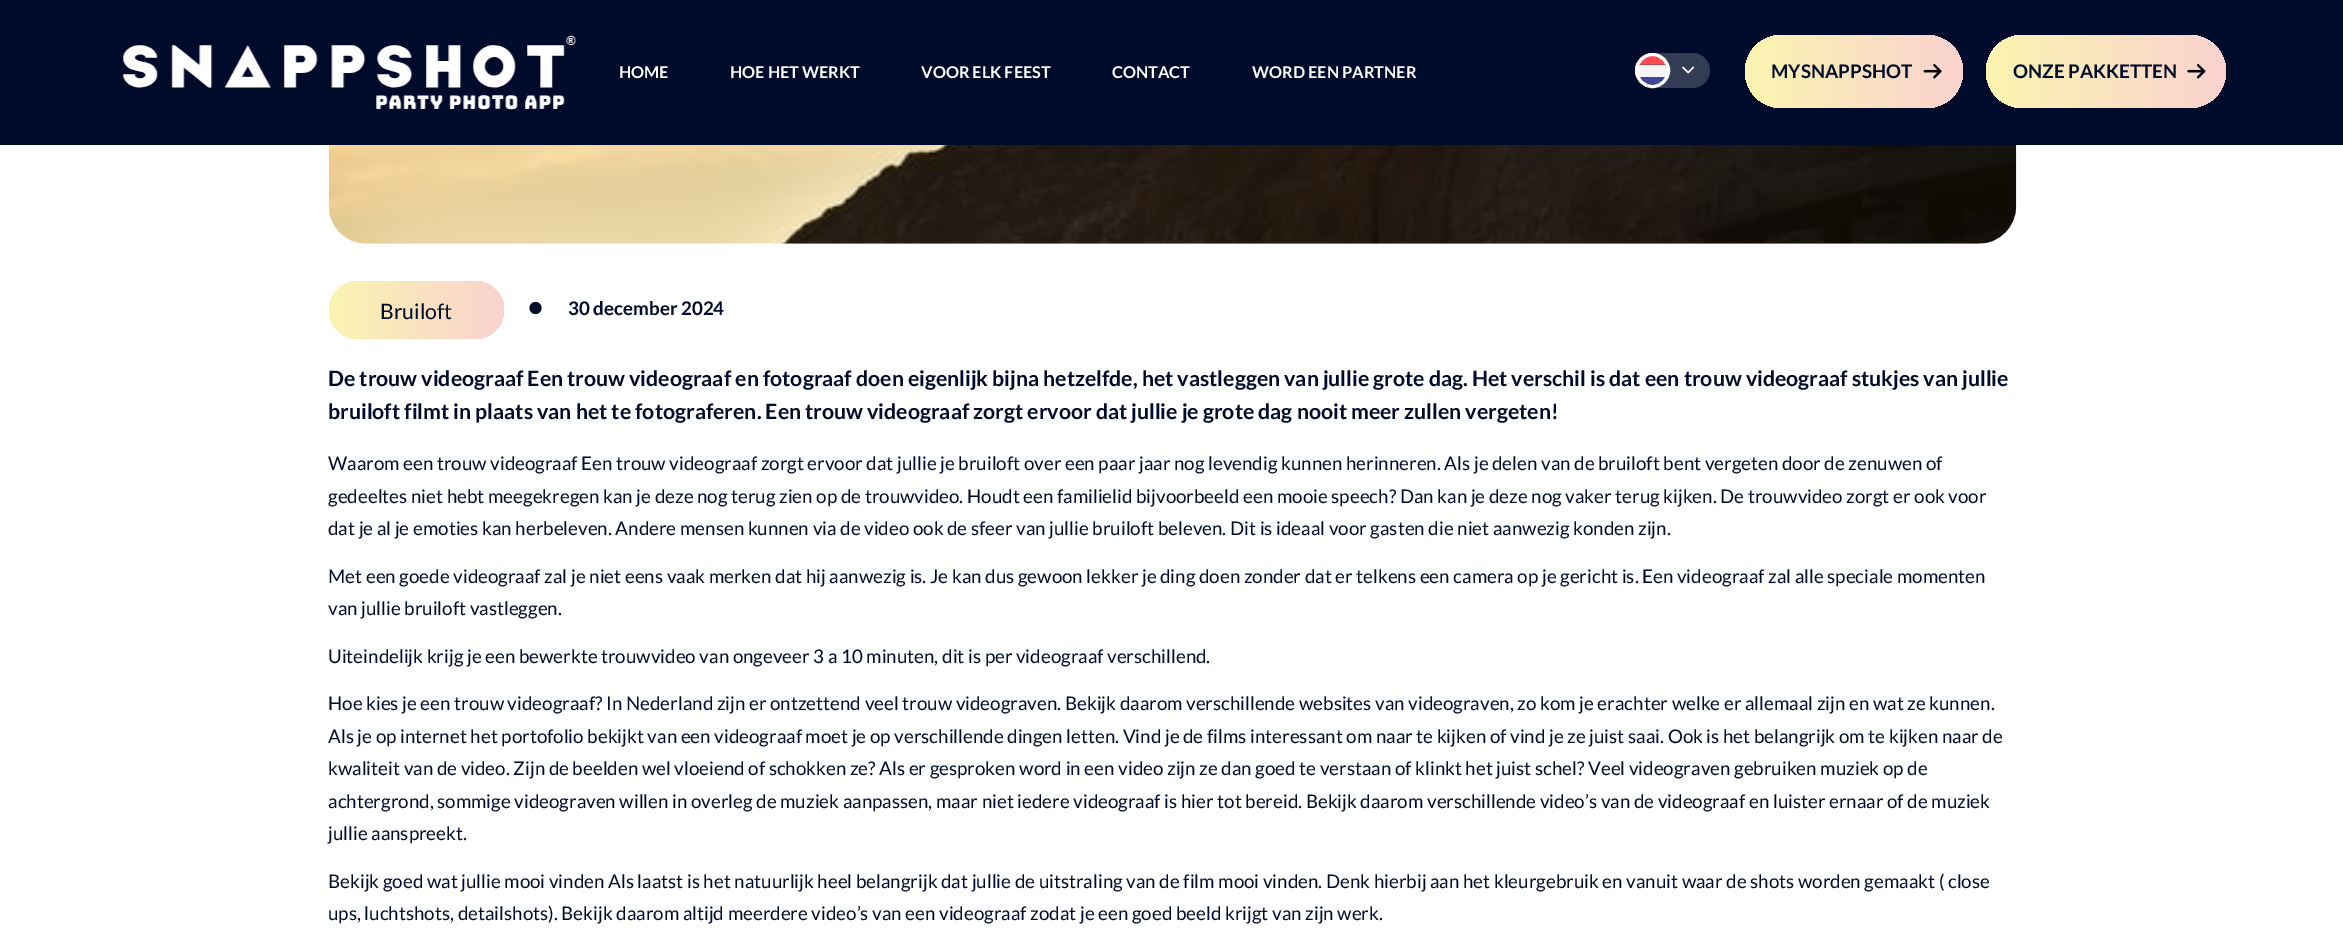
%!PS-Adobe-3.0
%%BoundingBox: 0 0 2343 941
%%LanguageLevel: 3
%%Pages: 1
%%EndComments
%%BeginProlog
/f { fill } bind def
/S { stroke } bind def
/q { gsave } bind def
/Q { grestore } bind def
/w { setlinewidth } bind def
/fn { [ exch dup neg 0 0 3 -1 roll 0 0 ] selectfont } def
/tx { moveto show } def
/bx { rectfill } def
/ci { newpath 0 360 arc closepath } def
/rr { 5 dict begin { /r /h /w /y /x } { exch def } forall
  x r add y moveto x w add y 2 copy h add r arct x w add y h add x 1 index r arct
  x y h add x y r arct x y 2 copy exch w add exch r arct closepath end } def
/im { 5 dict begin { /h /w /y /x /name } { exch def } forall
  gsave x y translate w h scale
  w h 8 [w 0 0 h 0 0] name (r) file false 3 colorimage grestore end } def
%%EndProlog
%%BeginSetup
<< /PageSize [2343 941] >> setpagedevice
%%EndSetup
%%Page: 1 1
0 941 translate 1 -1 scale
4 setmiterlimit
1 setgray
0 0 2343 941 bx
0 0.043 0.169 setrgbcolor
0 0 2343 145 bx
(image0.raw) 122 35 455 75 im
/Lato-Bold 16.25 fn
1 setgray
(HOME) 619 78 tx
(HOE HET WERKT) 730 78 tx
(VOOR ELK FEEST) 921 78 tx
(CONTACT) 1112 78 tx
(WORD EEN PARTNER) 1252 78 tx
0.2 0.235 0.333 setrgbcolor
1635 53 75 35 17.5 rr f
(image1.raw) 1682 66 13 8 im
(image2.raw) 1635 53 35 35 im
1 setgray
3 w
1652.5 70.5 16 ci S
q 1745 35 218 73 36.5 rr clip newpath
<< /ShadingType 2 /ColorSpace /DeviceRGB /Coords [1745 71 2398 71] /Extend [true true] /Function << /FunctionType 3 /Domain [0 1] /Functions [<< /FunctionType 2 /Domain [0 1] /C0 [0.984 0.961 0.69] /C1 [0.98 0.824 0.812] /N 1 >> << /FunctionType 2 /Domain [0 1] /C0 [0.98 0.824 0.812] /C1 [0.702 0.78 0.898] /N 1 >> << /FunctionType 2 /Domain [0 1] /C0 [0.702 0.78 0.898] /C1 [0.984 0.98 0.91] /N 1 >>] /Bounds [0.33 0.67] /Encode [0 1 0 1 0 1] >> >> shfill Q
/Lato-Bold 18.75 fn
0 0.043 0.169 setrgbcolor
(MYSNAPPSHOT) 1771 78 tx
(image3.raw) 1923 64 19 15 im
q 1986 35 240 73 36.5 rr clip newpath
<< /ShadingType 2 /ColorSpace /DeviceRGB /Coords [1986 71 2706 71] /Extend [true true] /Function << /FunctionType 3 /Domain [0 1] /Functions [<< /FunctionType 2 /Domain [0 1] /C0 [0.984 0.961 0.69] /C1 [0.98 0.824 0.812] /N 1 >> << /FunctionType 2 /Domain [0 1] /C0 [0.98 0.824 0.812] /C1 [0.702 0.78 0.898] /N 1 >> << /FunctionType 2 /Domain [0 1] /C0 [0.702 0.78 0.898] /C1 [0.984 0.98 0.91] /N 1 >>] /Bounds [0.33 0.67] /Encode [0 1 0 1 0 1] >> >> shfill Q
(ONZE PAKKETTEN) 2013 78 tx
(image4.raw) 2187 64 19 15 im
(image5.raw) 328 145 1689 99 im
q 329 281 175 58 29 rr clip newpath
<< /ShadingType 2 /ColorSpace /DeviceRGB /Coords [329 310 854 310] /Extend [true true] /Function << /FunctionType 3 /Domain [0 1] /Functions [<< /FunctionType 2 /Domain [0 1] /C0 [0.984 0.961 0.69] /C1 [0.98 0.824 0.812] /N 1 >> << /FunctionType 2 /Domain [0 1] /C0 [0.98 0.824 0.812] /C1 [0.702 0.78 0.898] /N 1 >> << /FunctionType 2 /Domain [0 1] /C0 [0.702 0.78 0.898] /C1 [0.984 0.98 0.91] /N 1 >>] /Bounds [0.33 0.67] /Encode [0 1 0 1 0 1] >> >> shfill Q
/Lato-Regular 21.25 fn
(Bruiloft) 380 319 tx
535.5 308 6 ci f
/Lato-Bold 18.75 fn
(30 december 2024) 568 315 tx
/Lato-Bold 21.25 fn
(De trouw videograaf Een trouw videograaf en fotograaf doen eigenlijk bijna hetzelfde, het vastleggen van jullie grote dag. Het verschil is dat een trouw videograaf stukjes van jullie) 328 386 tx
(bruiloft filmt in plaats van het te fotograferen. Een trouw videograaf zorgt ervoor dat jullie je grote dag nooit meer zullen vergeten!) 328 419 tx
/Lato-Regular 18.75 fn
(Waarom een trouw videograaf Een trouw videograaf zorgt ervoor dat jullie je bruiloft over een paar jaar nog levendig kunnen herinneren. Als je delen van de bruiloft bent vergeten door de zenuwen of) 328 470 tx
(gedeeltes niet hebt meegekregen kan je deze nog terug zien op de trouwvideo. Houdt een familielid bijvoorbeeld een mooie speech? Dan kan je deze nog vaker terug kijken. De trouwvideo zorgt er ook voor) 328 503 tx
(dat je al je emoties kan herbeleven. Andere mensen kunnen via de video ook de sfeer van jullie bruiloft beleven. Dit is ideaal voor gasten die niet aanwezig konden zijn.) 328 535 tx
(Met een goede videograaf zal je niet eens vaak merken dat hij aanwezig is. Je kan dus gewoon lekker je ding doen zonder dat er telkens een camera op je gericht is. Een videograaf zal alle speciale momenten) 328 583 tx
(van jullie bruiloft vastleggen.) 328 615 tx
(Uiteindelijk krijg je een bewerkte trouwvideo van ongeveer 3 a 10 minuten, dit is per videograaf verschillend.) 328 663 tx
(Hoe kies je een trouw videograaf? In Nederland zijn er ontzettend veel trouw videograven. Bekijk daarom verschillende websites van videograven, zo kom je erachter welke er allemaal zijn en wat ze kunnen.) 328 710 tx
(Als je op internet het portofolio bekijkt van een videograaf moet je op verschillende dingen letten. Vind je de films interessant om naar te kijken of vind je ze juist saai. Ook is het belangrijk om te kijken naar de) 328 743 tx
(kwaliteit van de video. Zijn de beelden wel vloeiend of schokken ze? Als er gesproken word in een video zijn ze dan goed te verstaan of klinkt het juist schel? Veel videograven gebruiken muziek op de) 328 775 tx
(achtergrond, sommige videograven willen in overleg de muziek aanpassen, maar niet iedere videograaf is hier tot bereid. Bekijk daarom verschillende video’s van de videograaf en luister ernaar of de muziek) 328 808 tx
(jullie aanspreekt.) 328 840 tx
(Bekijk goed wat jullie mooi vinden Als laatst is het natuurlijk heel belangrijk dat jullie de uitstraling van de film mooi vinden. Denk hierbij aan het kleurgebruik en vanuit waar de shots worden gemaakt \( close) 328 888 tx
(ups, luchtshots, detailshots\). Bekijk daarom altijd meerdere video’s van een videograaf zodat je een goed beeld krijgt van zijn werk.) 328 920 tx
showpage
%%EOF
